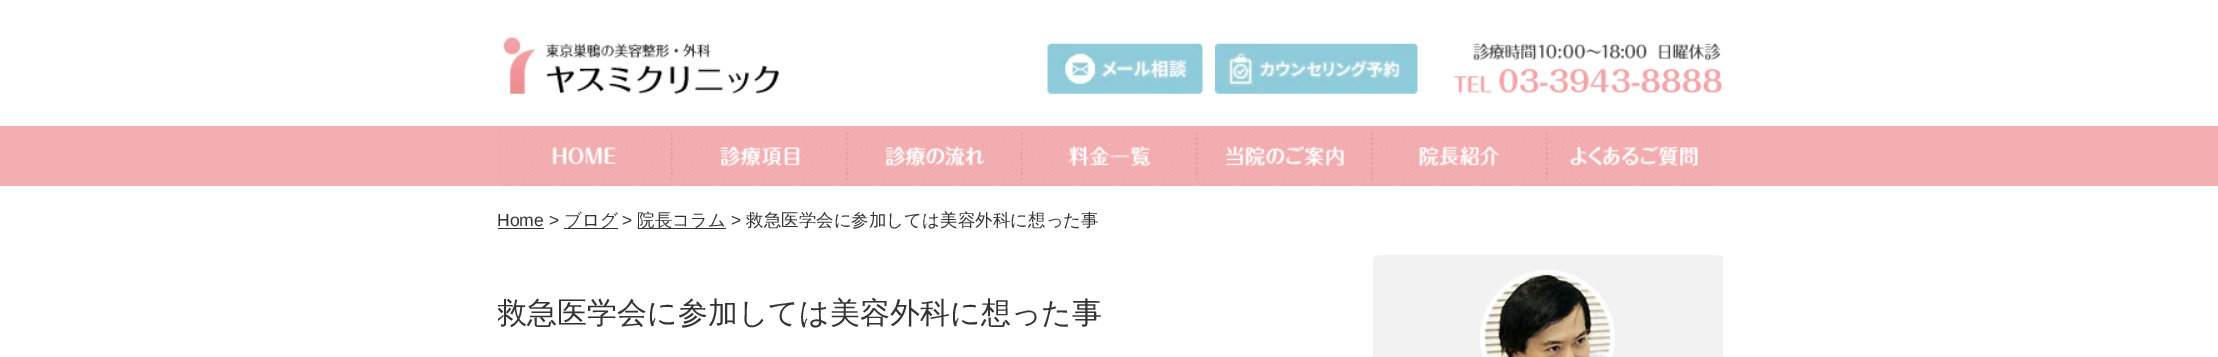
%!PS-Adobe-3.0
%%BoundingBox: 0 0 2218 357
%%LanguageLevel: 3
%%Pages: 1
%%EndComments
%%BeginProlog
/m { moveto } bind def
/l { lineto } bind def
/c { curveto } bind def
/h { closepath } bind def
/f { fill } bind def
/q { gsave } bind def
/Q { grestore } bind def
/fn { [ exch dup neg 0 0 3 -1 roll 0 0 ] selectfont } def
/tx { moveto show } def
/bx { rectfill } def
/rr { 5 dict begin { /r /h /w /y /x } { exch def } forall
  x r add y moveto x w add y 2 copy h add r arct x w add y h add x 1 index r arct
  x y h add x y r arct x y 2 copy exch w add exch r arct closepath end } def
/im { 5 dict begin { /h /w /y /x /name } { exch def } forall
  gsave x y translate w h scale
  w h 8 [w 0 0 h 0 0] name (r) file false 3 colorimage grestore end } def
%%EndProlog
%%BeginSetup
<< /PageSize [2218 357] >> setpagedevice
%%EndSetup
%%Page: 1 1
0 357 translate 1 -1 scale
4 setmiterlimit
1 setgray
0 0 2218 357 bx
(image0.raw) 503 37 276 57 im
(image1.raw) 1047 43 156 51 im
(image2.raw) 1215 43 203 51 im
(image3.raw) 1453 43 270 50 im
0.953 0.682 0.694 setrgbcolor
0 126 2218 60 bx
(image4.raw) 498 127 175 60 im
(image5.raw) 672 127 176 60 im
(image6.raw) 847 127 176 60 im
(image7.raw) 1022 127 176 60 im
(image8.raw) 1197 127 176 60 im
(image9.raw) 1372 127 176 60 im
(image10.raw) 1547 127 175 60 im
/LiberationSans-Regular 17.5 fn
0.2 setgray
(Home >) 497 226 tx
498 228 46 1 bx
564 228 54 1 bx
/WenQuanYiZenHei-Medium 17.5 fn
(ブログ) 564 226 tx
/LiberationSans-Regular 17.5 fn
(>) 622 226 tx
638 228 88 1 bx
/WenQuanYiZenHei-Medium 17.5 fn
(院長コラム) 637 226 tx
/LiberationSans-Regular 17.5 fn
(>) 731 226 tx
/WenQuanYiZenHei-Medium 17.5 fn
(救急医学会に参加しては美容外科に想った事) 746 226 tx
q
498 186 1225 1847 rectclip
/WenQuanYiZenHei-Medium 30 fn
(救急医学会に参加しては美容外科に想った事) 497 323 tx
0.851 setgray
1375 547 m 1376 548 1377 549 1379 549 c 1719 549 l 1722 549 1724 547 1724 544 c 1724 261 l 1724 259 1723 257 1721 256 c 1722 257 1722 259 1722 260 c 1722 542 l 1722 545 1720 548 1718 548 c 1378 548 l h f
Q
0.949 setgray
1373 255 350 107 5 rr f
(image11.raw) 1480 270 135 87 im
showpage
%%EOF
